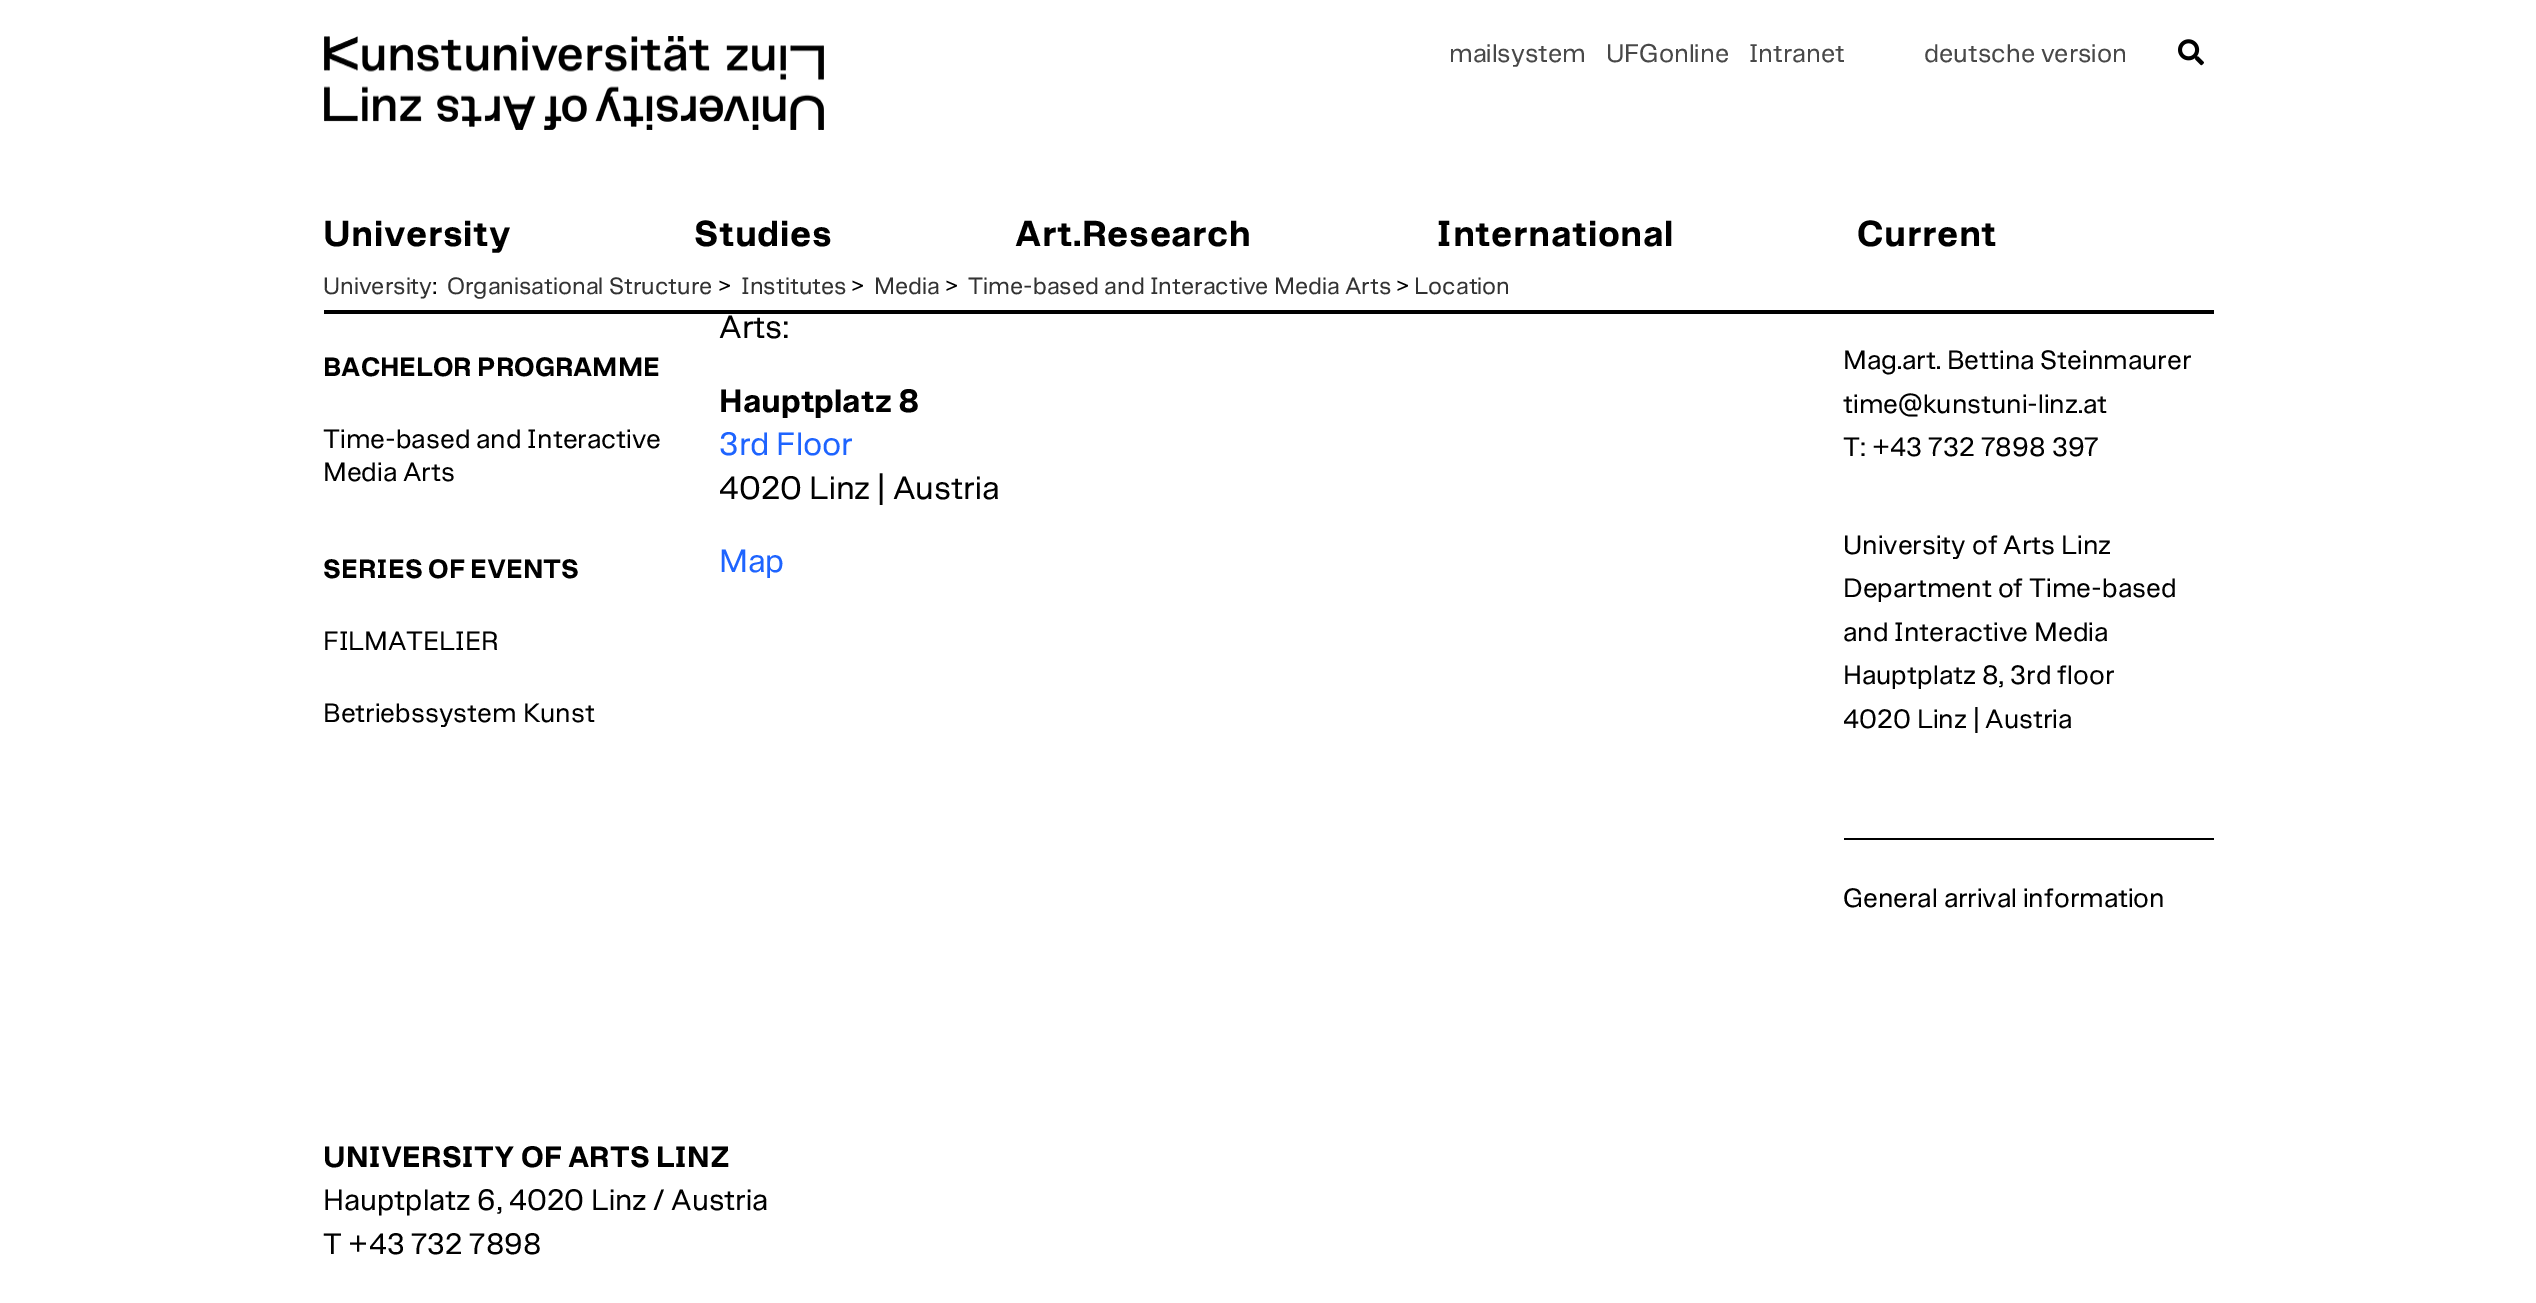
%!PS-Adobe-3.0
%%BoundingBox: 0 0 2536 1303
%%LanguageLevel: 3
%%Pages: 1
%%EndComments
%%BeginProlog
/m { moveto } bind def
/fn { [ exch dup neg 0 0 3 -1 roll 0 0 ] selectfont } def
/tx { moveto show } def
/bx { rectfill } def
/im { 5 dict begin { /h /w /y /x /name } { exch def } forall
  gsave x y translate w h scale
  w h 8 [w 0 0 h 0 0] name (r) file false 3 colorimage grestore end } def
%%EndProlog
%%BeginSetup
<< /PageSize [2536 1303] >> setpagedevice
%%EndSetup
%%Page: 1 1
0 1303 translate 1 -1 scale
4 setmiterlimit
1 setgray
0 0 2536 1303 bx
(image0.raw) 324 36 500 94 im
/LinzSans-Regular 26 fn
0.282 setgray
(mailsystem) 1449 62 tx
(UFGonline) 1606 62 tx
(Intranet) 1749 62 tx
(deutsche version) 1924 62 tx
(image1.raw) 2178 39 26 27 im
/LinzSans-Bold 36.75 fn
0 setgray
323 246 m 0.6 0 (University) ashow
694 246 m 0.6 0 (Studies) ashow
1015 246 m 0.6 0 (Art.Research) ashow
1436 246 m 0.6 0 (International) ashow
1857 246 m 0.6 0 (Current) ashow
324 310 1890 4 bx
/LinzSans-Regular 24 fn
0.2 setgray
(University) 323 294 tx
0 setgray
(:) 432 294 tx
0.2 setgray
(Organisational Structure) 447 294 tx
0 setgray
(>) 718 294 tx
0.2 setgray
(Institutes) 741 294 tx
0 setgray
(>) 851 294 tx
0.2 setgray
(Media) 874 294 tx
0 setgray
(>) 945 294 tx
0.2 setgray
(Time-based and Interactive Media Arts) 968 294 tx
0 setgray
(>) 1396 294 tx
0.2 setgray
(Location) 1414 294 tx
/LinzSans-Bold 27 fn
0 setgray
(BACHELOR PROGRAMME) 323 376 tx
/LinzSans-Regular 27 fn
(Time-based and Interactive) 323 448 tx
(Media Arts) 323 481 tx
/LinzSans-Bold 27 fn
(SERIES OF EVENTS) 323 578 tx
/LinzSans-Regular 27 fn
(FILMATELIER) 323 650 tx
(Betriebssystem Kunst) 323 722 tx
/LinzSans-Regular 33 fn
(Arts:) 719 338 tx
/LinzSans-Bold 33 fn
(Hauptplatz 8) 719 412 tx
/LinzSans-Regular 33 fn
0.118 0.392 1 setrgbcolor
(3rd Floor) 719 455 tx
0 setgray
(4020 Linz | Austria) 719 499 tx
0.118 0.392 1 setrgbcolor
(Map) 719 572 tx
/LinzSans-Regular 27 fn
0 setgray
(Mag.art. Bettina Steinmaurer) 1843 369 tx
(time@kunstuni-linz.at) 1843 413 tx
(T: +43 732 7898 397) 1843 456 tx
(University of Arts Linz) 1843 554 tx
(Department of Time-based) 1843 597 tx
(and Interactive Media) 1843 641 tx
(Hauptplatz 8, 3rd floor) 1843 684 tx
(4020 Linz | Austria) 1843 728 tx
1844 838 370 2 bx
(General arrival information) 1843 907 tx
/LinzSans-Bold 30 fn
(UNIVERSITY OF ARTS LINZ) 323 1167 tx
/LinzSans-Regular 30 fn
(Hauptplatz 6, 4020 Linz / Austria) 323 1210 tx
(T +43 732 7898) 323 1254 tx
showpage
%%EOF
